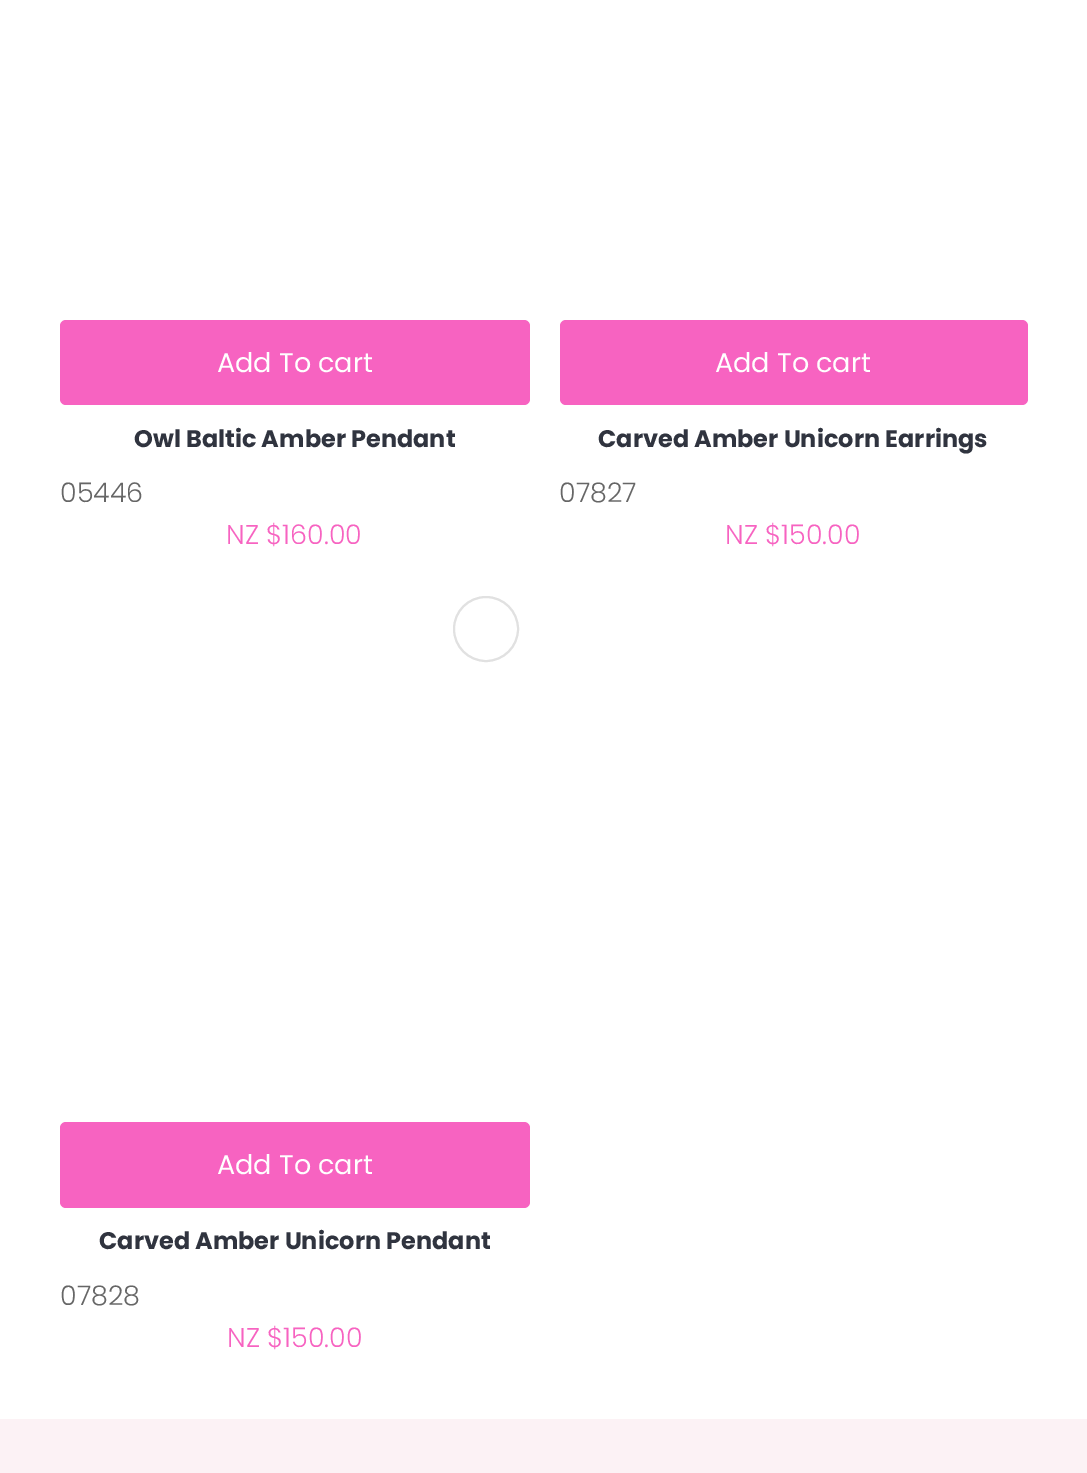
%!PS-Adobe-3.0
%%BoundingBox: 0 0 1087 1473
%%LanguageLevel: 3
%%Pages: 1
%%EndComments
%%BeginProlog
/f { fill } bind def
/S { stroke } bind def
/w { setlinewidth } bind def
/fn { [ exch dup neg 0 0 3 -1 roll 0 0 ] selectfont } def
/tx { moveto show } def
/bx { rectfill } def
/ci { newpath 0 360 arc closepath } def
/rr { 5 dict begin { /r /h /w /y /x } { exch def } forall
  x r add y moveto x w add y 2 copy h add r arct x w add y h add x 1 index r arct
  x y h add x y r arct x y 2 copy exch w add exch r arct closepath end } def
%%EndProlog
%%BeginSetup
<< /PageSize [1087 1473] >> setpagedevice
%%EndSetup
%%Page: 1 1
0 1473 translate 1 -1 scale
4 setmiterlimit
1 setgray
0 0 1087 1473 bx
0.969 0.388 0.757 setrgbcolor
60 320 470 85 6 rr f
/Poppins-Regular 27 fn
1 setgray
(Add To cart) 217 372 tx
/Poppins-Bold 24 fn
0.188 0.204 0.247 setrgbcolor
(Owl Baltic Amber Pendant) 134 447 tx
/Poppins-Light 27 fn
0.4 setgray
(05446) 60 502 tx
0.969 0.388 0.757 setrgbcolor
(NZ $160.00) 226 544 tx
560 320 468 85 6 rr f
/Poppins-Regular 27 fn
1 setgray
(Add To cart) 715 372 tx
/Poppins-Bold 24 fn
0.188 0.204 0.247 setrgbcolor
(Carved Amber Unicorn Earrings) 598 447 tx
/Poppins-Light 27 fn
0.4 setgray
(07827) 559 502 tx
0.969 0.388 0.757 setrgbcolor
(NZ $150.00) 725 544 tx
0.882 setgray
2 w
486 629 32 ci S
0.969 0.388 0.757 setrgbcolor
60 1122 470 86 6 rr f
/Poppins-Regular 27 fn
1 setgray
(Add To cart) 217 1174 tx
/Poppins-Bold 24 fn
0.188 0.204 0.247 setrgbcolor
(Carved Amber Unicorn Pendant) 99 1249 tx
/Poppins-Light 27 fn
0.4 setgray
(07828) 60 1305 tx
0.969 0.388 0.757 setrgbcolor
(NZ $150.00) 227 1347 tx
0.988 0.949 0.961 setrgbcolor
0 1419 1087 54 bx
showpage
%%EOF
